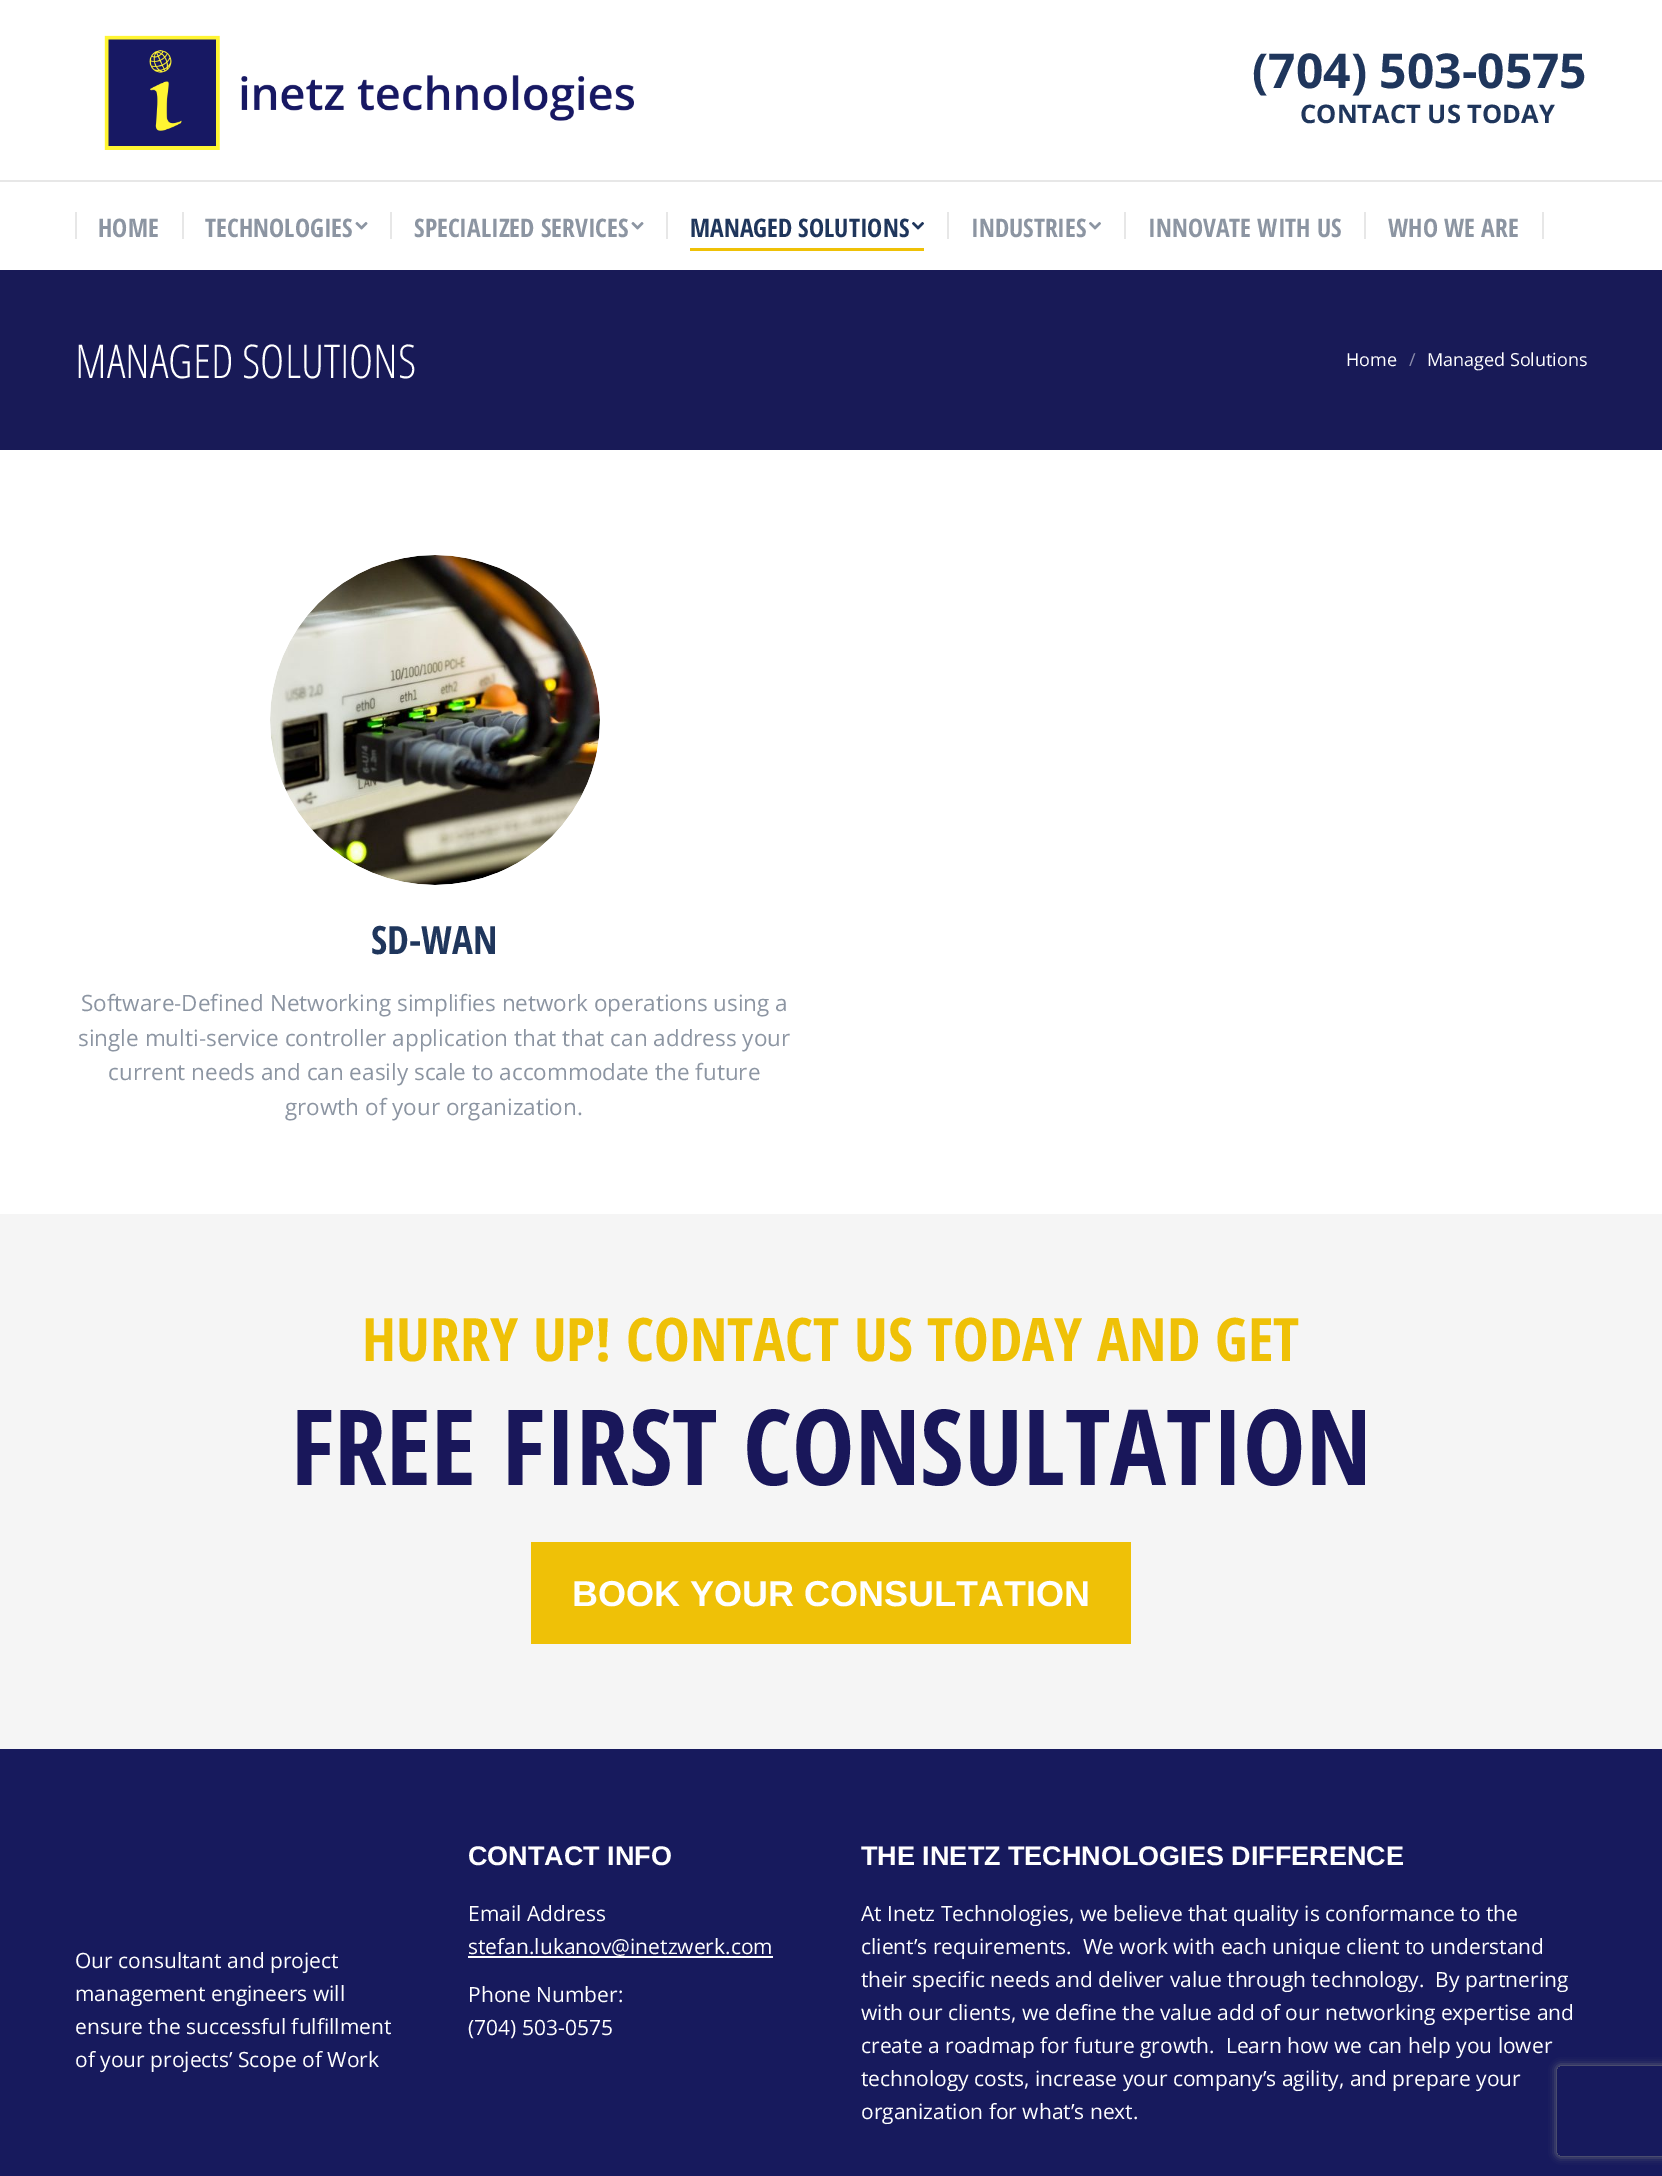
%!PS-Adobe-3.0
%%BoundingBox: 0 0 1662 2176
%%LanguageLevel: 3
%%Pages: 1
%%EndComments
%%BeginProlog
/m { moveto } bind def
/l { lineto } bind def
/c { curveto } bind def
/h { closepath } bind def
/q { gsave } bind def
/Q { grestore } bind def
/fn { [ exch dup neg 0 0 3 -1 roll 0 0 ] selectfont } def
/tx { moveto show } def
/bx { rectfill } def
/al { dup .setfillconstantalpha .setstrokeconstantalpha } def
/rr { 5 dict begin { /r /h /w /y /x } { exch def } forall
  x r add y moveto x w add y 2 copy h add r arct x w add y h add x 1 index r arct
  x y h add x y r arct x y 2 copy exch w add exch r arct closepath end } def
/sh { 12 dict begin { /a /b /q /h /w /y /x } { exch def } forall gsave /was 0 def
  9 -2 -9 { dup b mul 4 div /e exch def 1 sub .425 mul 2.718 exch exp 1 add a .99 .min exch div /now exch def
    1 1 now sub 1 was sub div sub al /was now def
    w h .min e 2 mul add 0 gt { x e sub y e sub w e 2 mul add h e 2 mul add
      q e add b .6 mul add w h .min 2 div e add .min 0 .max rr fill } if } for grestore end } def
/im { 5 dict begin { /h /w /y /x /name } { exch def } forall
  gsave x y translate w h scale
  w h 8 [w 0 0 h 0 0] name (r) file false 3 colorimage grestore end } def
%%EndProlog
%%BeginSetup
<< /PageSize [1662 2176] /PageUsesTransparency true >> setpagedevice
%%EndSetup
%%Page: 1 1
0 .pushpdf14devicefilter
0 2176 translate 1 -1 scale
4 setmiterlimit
1 setgray
0 0 1662 2176 bx
(image0.raw) 104 35 530 115 im
/OpenSans-Bold 48 fn
0.122 0.212 0.361 setrgbcolor
(\(704\) 503-0575) 1252 88 tx
/OpenSans-Bold 25.5 fn
(CONTACT US TODAY) 1300 123 tx
0.906 setgray
0 180 1662 2 bx
75 212 2 27 bx
/OpenSansCondensed-Bold 25.5 fn
0.549 0.584 0.635 setrgbcolor
(HOME) 98 237 tx
0.906 setgray
182 212 2 27 bx
0.549 0.584 0.635 setrgbcolor
(TECHNOLOGIES) 205 237 tx
(image1.raw) 355 222 13 8 im
0.906 setgray
390 212 2 27 bx
0.549 0.584 0.635 setrgbcolor
(SPECIALIZED SERVICES) 414 237 tx
(image1.raw) 631 222 13 8 im
0.906 setgray
666 212 2 27 bx
0.122 0.212 0.361 setrgbcolor
(MANAGED SOLUTIONS) 690 237 tx
(image2.raw) 912 222 12 8 im
0.937 0.757 0.027 setrgbcolor
690 248 234 3 bx
0.906 setgray
947 212 2 27 bx
0.549 0.584 0.635 setrgbcolor
(INDUSTRIES) 971 237 tx
(image3.raw) 1089 222 12 8 im
0.906 setgray
1124 212 2 27 bx
0.549 0.584 0.635 setrgbcolor
(INNOVATE WITH US) 1148 237 tx
0.906 setgray
1364 212 2 27 bx
0.549 0.584 0.635 setrgbcolor
(WHO WE ARE) 1388 237 tx
0.906 setgray
1542 212 2 27 bx
0.094 0.102 0.341 setrgbcolor
0 270 1662 180 bx
/OpenSansCondensed-Light 46.5 fn
1 setgray
(MANAGED SOLUTIONS) 75 378 tx
/OpenSans-Regular 18 fn
(Home) 1346 366 tx
0.549 0.553 0.671 setrgbcolor
(/) 1409 366 tx
1 setgray
(Managed Solutions) 1427 366 tx
(image4.raw) 270 555 330 330 im
/OpenSansCondensed-Bold 39 fn
0.122 0.212 0.361 setrgbcolor
(SD-WAN) 371 954 tx
/OpenSans-Regular 22.5 fn
0.549 0.584 0.635 setrgbcolor
(Software-Defined Networking simplifies network operations using a) 81 1011 tx
(single multi-service controller application that that can address your) 78 1046 tx
(current needs and can easily scale to accommodate the future) 108 1080 tx
(growth of your organization.) 285 1115 tx
0.961 setgray
0 1214 1662 535 bx
/OpenSansCondensed-Bold 60 fn
0.937 0.757 0.027 setrgbcolor
(HURRY UP! CONTACT US TODAY AND GET) 362 1361 tx
/OpenSansCondensed-Bold 105 fn
0.098 0.09 0.353 setrgbcolor
(FREE FIRST CONSULTATION) 291 1485 tx
0.937 0.757 0.027 setrgbcolor
531 1542 600 102 bx
/LiberationSans-Bold 36 fn
1 setgray
(BOOK YOUR CONSULTATION) 572 1606 tx
0.09 0.102 0.365 setrgbcolor
0 1749 1662 427 bx
/OpenSans-Regular 21 fn
1 setgray
(Our consultant and project) 75 1968 tx
(management engineers will) 75 2001 tx
(ensure the successful fulfillment) 75 2034 tx
(of your projects’ Scope of Work) 75 2067 tx
/LiberationSans-Bold 27 fn
(CONTACT INFO) 468 1865 tx
/OpenSans-Regular 21 fn
(Email Address) 468 1921 tx
(stefan.lukanov@inetzwerk.com) 468 1954 tx
468 1956 305 2 bx
(Phone Number:) 468 2002 tx
(\(704\) 503-0575) 468 2035 tx
/LiberationSans-Bold 27 fn
(THE INETZ TECHNOLOGIES DIFFERENCE) 861 1865 tx
/OpenSans-Regular 21 fn
(At Inetz Technologies, we believe that quality is conformance to the) 861 1921 tx
(client’s requirements.  We work with each unique client to understand) 861 1954 tx
(their specific needs and deliver value through technology.  By partnering) 861 1987 tx
(with our clients, we define the value add of our networking expertise and) 861 2020 tx
(create a roadmap for future growth.  Learn how we can help you lower) 861 2053 tx
(technology costs, increase your company’s agility, and prepare your) 861 2086 tx
(organization for what’s next.) 861 2119 tx
q
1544 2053 m 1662 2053 l 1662 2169 l 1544 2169 l h 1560 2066 m 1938 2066 l 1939.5 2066 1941 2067.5 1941 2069 c 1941 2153 l 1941 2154.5 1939.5 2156 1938 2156 c 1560 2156 l 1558.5 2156 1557 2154.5 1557 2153 c 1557 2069 l 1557 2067.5 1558.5 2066 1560 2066 c h eoclip newpath
0.502 setgray
1557 2066 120 90 3 4 1 sh
Q
.poppdf14devicefilter showpage
%%EOF
